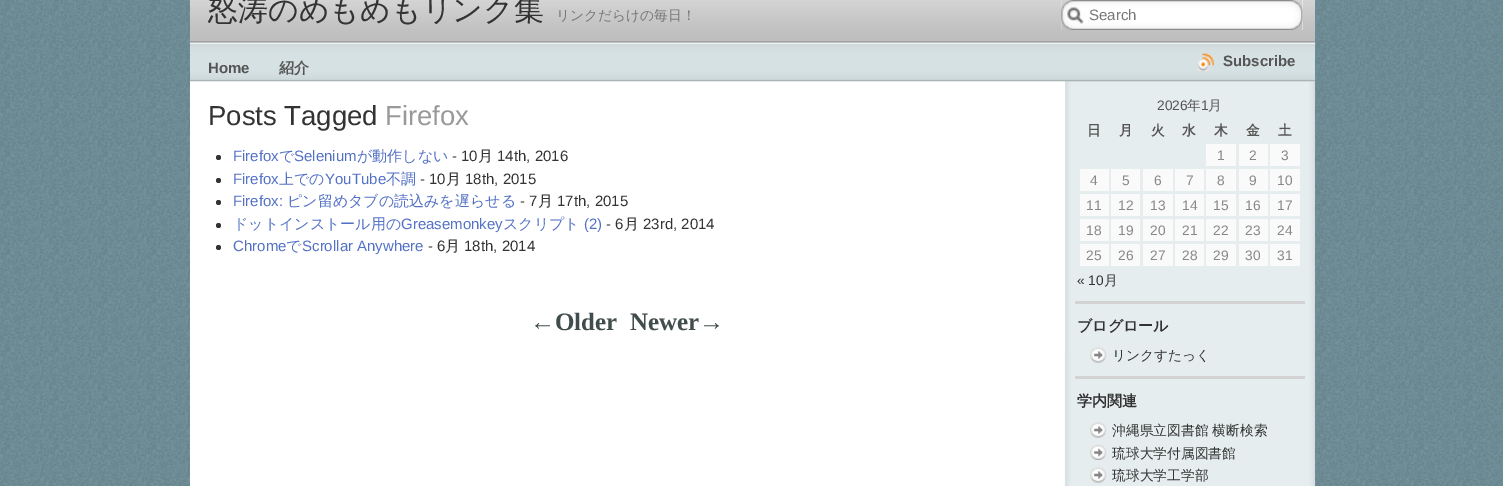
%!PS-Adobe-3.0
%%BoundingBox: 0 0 1503 486
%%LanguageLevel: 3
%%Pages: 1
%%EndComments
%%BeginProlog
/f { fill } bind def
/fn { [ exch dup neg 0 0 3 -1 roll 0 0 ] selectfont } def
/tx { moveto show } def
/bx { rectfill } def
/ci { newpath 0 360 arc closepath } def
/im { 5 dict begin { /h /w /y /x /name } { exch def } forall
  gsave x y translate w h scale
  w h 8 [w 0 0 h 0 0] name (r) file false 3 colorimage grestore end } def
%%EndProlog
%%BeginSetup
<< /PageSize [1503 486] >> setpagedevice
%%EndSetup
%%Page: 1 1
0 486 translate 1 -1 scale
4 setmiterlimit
1 setgray
0 0 1503 486 bx
(image0.raw) 0 0 1503 486 im
(image1.raw) 190 0 1125 42 im
/WenQuanYiZenHei-Medium 30 fn
0.2 setgray
(怒涛のめもめもリンク集) 208 20 tx
/WenQuanYiZenHei-Medium 13.75 fn
0.467 setgray
(リンクだらけの毎日！) 556 20 tx
0.98 setgray
1061 0 242 30 bx
(image2.raw) 1061 0 242 30 im
/LiberationSans-Regular 15 fn
0.467 setgray
(Search) 1089 20 tx
(image5.raw) 190 81 1125 405 im
1 setgray
190 81 875 274 bx
(image3.raw) 190 41 1125 41 im
/LiberationSans-Bold 15 fn
0.333 setgray
(Home) 208 73 tx
/WenQuanYiZenHei-Bold 15 fn
(紹介) 279 73 tx
(image4.raw) 1197 53 17 19 im
/LiberationSans-Bold 15 fn
(Subscribe) 1223 66 tx
/LiberationSans-Regular 27.5 fn
0.2 setgray
(Posts Tagged) 208 125 tx
0.6 setgray
(Firefox) 385 125 tx
0.2 setgray
218.5 157.5 2.5 ci f
/LiberationSans-Regular 15 fn
0.325 0.443 0.773 setrgbcolor
(Firefox) 233 161 tx
/WenQuanYiZenHei-Medium 15 fn
(で) 279 161 tx
/LiberationSans-Regular 15 fn
(Selenium) 294 161 tx
/WenQuanYiZenHei-Medium 15 fn
(が動作しない) 357 161 tx
/LiberationSans-Regular 15 fn
0.2 setgray
(- 10) 452 161 tx
/WenQuanYiZenHei-Medium 15 fn
(月) 478 161 tx
/LiberationSans-Regular 15 fn
(14th, 2016) 497 161 tx
218.5 180.5 2.5 ci f
0.325 0.443 0.773 setrgbcolor
(Firefox) 233 184 tx
/WenQuanYiZenHei-Medium 15 fn
(上での) 279 184 tx
/LiberationSans-Regular 15 fn
(YouTube) 325 184 tx
/WenQuanYiZenHei-Medium 15 fn
(不調) 386 184 tx
/LiberationSans-Regular 15 fn
0.2 setgray
(- 10) 420 184 tx
/WenQuanYiZenHei-Medium 15 fn
(月) 446 184 tx
/LiberationSans-Regular 15 fn
(18th, 2015) 465 184 tx
218.5 202.5 2.5 ci f
0.325 0.443 0.773 setrgbcolor
(Firefox:) 233 206 tx
/WenQuanYiZenHei-Medium 15 fn
(ピン留めタブの読込みを遅らせる) 287 206 tx
/LiberationSans-Regular 15 fn
0.2 setgray
(- 7) 520 206 tx
/WenQuanYiZenHei-Medium 15 fn
(月) 538 206 tx
/LiberationSans-Regular 15 fn
(17th, 2015) 557 206 tx
218.5 225.5 2.5 ci f
/WenQuanYiZenHei-Medium 15 fn
0.325 0.443 0.773 setrgbcolor
(ドットインストール用の) 233 229 tx
/LiberationSans-Regular 15 fn
(Greasemonkey) 401 229 tx
/WenQuanYiZenHei-Medium 15 fn
(スクリプト) 503 229 tx
/LiberationSans-Regular 15 fn
(\(2\)) 584 229 tx
0.2 setgray
(- 6) 606 229 tx
/WenQuanYiZenHei-Medium 15 fn
(月) 624 229 tx
/LiberationSans-Regular 15 fn
(23rd, 2014) 643 229 tx
218.5 247.5 2.5 ci f
0.325 0.443 0.773 setrgbcolor
(Chrome) 233 251 tx
/WenQuanYiZenHei-Medium 15 fn
(で) 286 251 tx
/LiberationSans-Regular 15 fn
(Scrollar Anywhere) 302 251 tx
0.2 setgray
(- 6) 428 251 tx
/WenQuanYiZenHei-Medium 15 fn
(月) 445 251 tx
/LiberationSans-Regular 15 fn
(18th, 2014) 464 251 tx
/LiberationSerif-Bold 25 fn
0.255 0.302 0.298 setrgbcolor
(←Older) 530 330 tx
(Newer→) 630 330 tx
0.824 setgray
1075 301 230 3 bx
/LiberationSans-Regular 13.75 fn
0.333 setgray
(2026) 1157 110 tx
/WenQuanYiZenHei-Medium 13.75 fn
(年) 1187 110 tx
/LiberationSans-Regular 13.75 fn
(1) 1201 110 tx
/WenQuanYiZenHei-Medium 13.75 fn
(月) 1208 110 tx
/WenQuanYiZenHei-Bold 13.75 fn
(日) 1087 135 tx
(月) 1119 135 tx
(火) 1151 135 tx
(水) 1182 135 tx
(木) 1214 135 tx
(金) 1246 135 tx
(土) 1278 135 tx
0.98 setgray
1206 144 30 22 bx
/LiberationSans-Regular 13.75 fn
0.533 setgray
(1) 1217 160 tx
0.98 setgray
1239 144 29 22 bx
0.533 setgray
(2) 1249 160 tx
0.98 setgray
1270 144 30 22 bx
0.533 setgray
(3) 1281 160 tx
0.98 setgray
1080 169 29 22 bx
0.533 setgray
(4) 1090 185 tx
0.98 setgray
1111 169 29 22 bx
0.533 setgray
(5) 1122 185 tx
0.98 setgray
1143 169 30 22 bx
0.533 setgray
(6) 1154 185 tx
0.98 setgray
1175 169 29 22 bx
0.533 setgray
(7) 1186 185 tx
0.98 setgray
1206 169 30 22 bx
0.533 setgray
(8) 1217 185 tx
0.98 setgray
1239 169 29 22 bx
0.533 setgray
(9) 1249 185 tx
0.98 setgray
1270 169 30 22 bx
0.533 setgray
(10) 1277 185 tx
0.98 setgray
1080 194 29 22 bx
0.533 setgray
(11) 1086 210 tx
0.98 setgray
1111 194 29 22 bx
0.533 setgray
(12) 1118 210 tx
0.98 setgray
1143 194 30 22 bx
0.533 setgray
(13) 1150 210 tx
0.98 setgray
1175 194 29 22 bx
0.533 setgray
(14) 1182 210 tx
0.98 setgray
1206 194 30 22 bx
0.533 setgray
(15) 1213 210 tx
0.98 setgray
1239 194 29 22 bx
0.533 setgray
(16) 1245 210 tx
0.98 setgray
1270 194 30 22 bx
0.533 setgray
(17) 1277 210 tx
0.98 setgray
1080 219 29 22 bx
0.533 setgray
(18) 1086 235 tx
0.98 setgray
1111 219 29 22 bx
0.533 setgray
(19) 1118 235 tx
0.98 setgray
1143 219 30 22 bx
0.533 setgray
(20) 1150 235 tx
0.98 setgray
1175 219 29 22 bx
0.533 setgray
(21) 1182 235 tx
0.98 setgray
1206 219 30 22 bx
0.533 setgray
(22) 1213 235 tx
0.98 setgray
1239 219 29 22 bx
0.533 setgray
(23) 1245 235 tx
0.98 setgray
1270 219 30 22 bx
0.533 setgray
(24) 1277 235 tx
0.98 setgray
1080 244 29 22 bx
0.533 setgray
(25) 1086 260 tx
0.98 setgray
1111 244 29 22 bx
0.533 setgray
(26) 1118 260 tx
0.98 setgray
1143 244 30 22 bx
0.533 setgray
(27) 1150 260 tx
0.98 setgray
1175 244 29 22 bx
0.533 setgray
(28) 1182 260 tx
0.98 setgray
1206 244 30 22 bx
0.533 setgray
(29) 1213 260 tx
0.98 setgray
1239 244 29 22 bx
0.533 setgray
(30) 1245 260 tx
0.98 setgray
1270 244 30 22 bx
0.533 setgray
(31) 1277 260 tx
0.2 setgray
(« 10) 1077 285 tx
/WenQuanYiZenHei-Medium 13.75 fn
(月) 1104 285 tx
0.824 setgray
1075 376 230 3 bx
/WenQuanYiZenHei-Bold 15 fn
0.2 setgray
(ブログロール) 1077 331 tx
(image6.raw) 1090 347 17 16 im
/WenQuanYiZenHei-Medium 13.75 fn
(リンクすたっく) 1112 360 tx
/WenQuanYiZenHei-Bold 15 fn
(学内関連) 1077 406 tx
(image6.raw) 1090 422 17 16 im
/WenQuanYiZenHei-Medium 13.75 fn
(沖縄県立図書館 横断検索) 1112 435 tx
(image7.raw) 1090 445 17 15 im
(琉球大学付属図書館) 1112 458 tx
(image6.raw) 1090 467 17 16 im
(琉球大学工学部) 1112 480 tx
showpage
%%EOF
